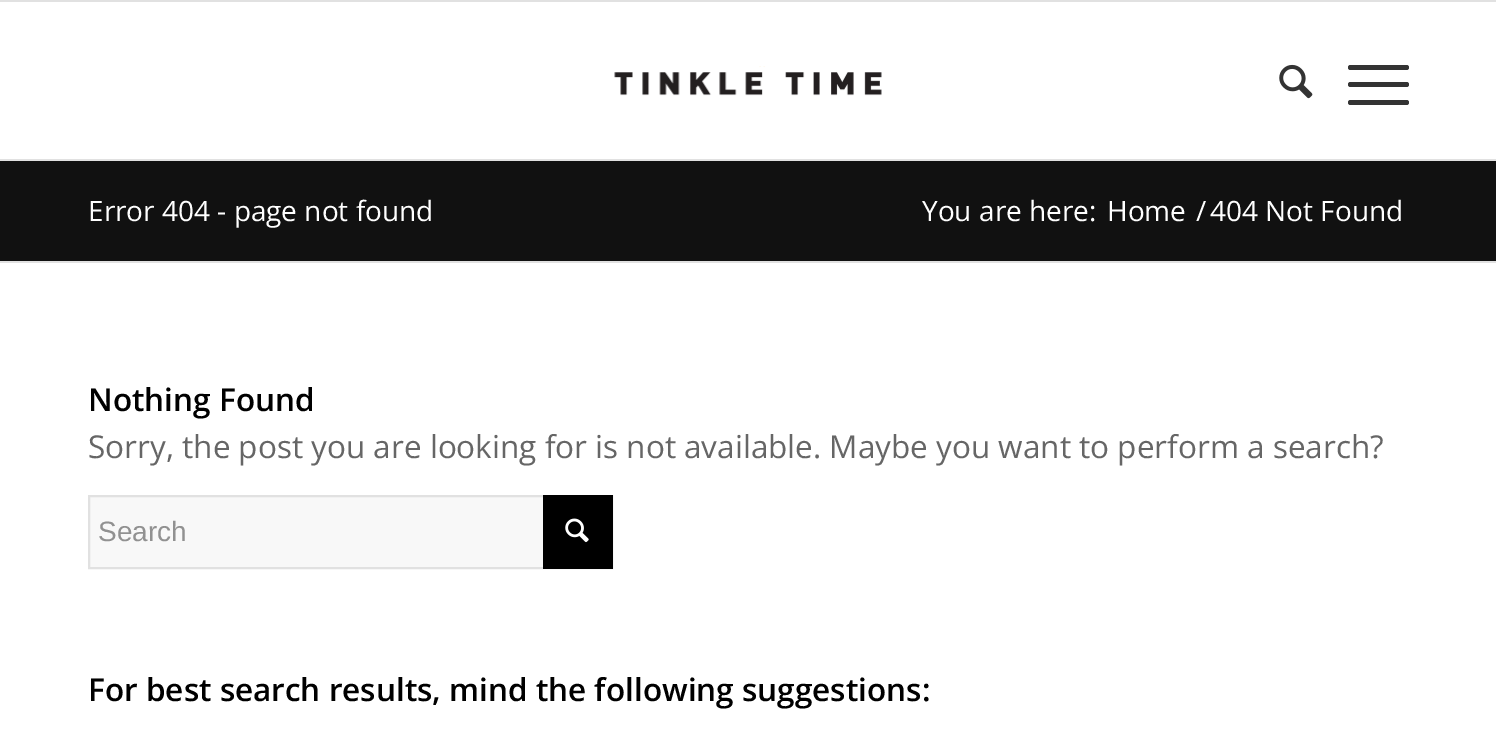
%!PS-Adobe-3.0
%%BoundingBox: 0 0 1496 748
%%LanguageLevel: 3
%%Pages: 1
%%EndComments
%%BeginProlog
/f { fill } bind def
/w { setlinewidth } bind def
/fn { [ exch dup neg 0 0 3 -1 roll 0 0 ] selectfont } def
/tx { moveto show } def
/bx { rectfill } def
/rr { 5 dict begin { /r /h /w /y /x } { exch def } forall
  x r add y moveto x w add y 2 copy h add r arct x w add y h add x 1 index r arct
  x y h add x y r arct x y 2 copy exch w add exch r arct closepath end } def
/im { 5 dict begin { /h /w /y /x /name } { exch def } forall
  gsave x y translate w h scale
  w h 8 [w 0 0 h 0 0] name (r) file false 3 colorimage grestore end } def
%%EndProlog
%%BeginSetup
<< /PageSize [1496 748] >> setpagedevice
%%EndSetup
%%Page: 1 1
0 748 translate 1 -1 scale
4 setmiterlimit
1 setgray
0 0 1496 748 bx
0.882 setgray
0 0 1496 2 bx
0 159 1496 2 bx
(image0.raw) 614 66 268 30 im
(image1.raw) 1279 64 34 35 im
0.2 setgray
1348 82 61 5 2.5 rr f
1348 65 61 5 2.5 rr f
1348 100 61 5 2.5 rr f
0.067 setgray
0 161 1496 100 bx
/OpenSans-Regular 28 fn
1 setgray
(Error 404 - page not found) 88 221 tx
(You are here:) 922 221 tx
(Home) 1107 221 tx
(/) 1196 221 tx
(404 Not Found) 1210 221 tx
0.882 setgray
0 261 1496 2 bx
/OpenSans-SemiBold 31.5 fn
0 setgray
(Nothing Found) 88 411 tx
/OpenSans-Regular 31.5 fn
0.4 setgray
(Sorry, the post you are looking for is not available. Maybe you want to perform a search?) 88 458 tx
0.973 setgray
90 497 453 70 bx
0.882 setgray
2 w
89 496 523 72 rectstroke
/LiberationSans-Regular 28 fn
0.569 setgray
(Search) 98 541 tx
0 setgray
543 495 70 74 bx
(image2.raw) 565 518 24 25 im
/OpenSans-SemiBold 31.5 fn
(For best search results, mind the following suggestions:) 88 701 tx
showpage
%%EOF
